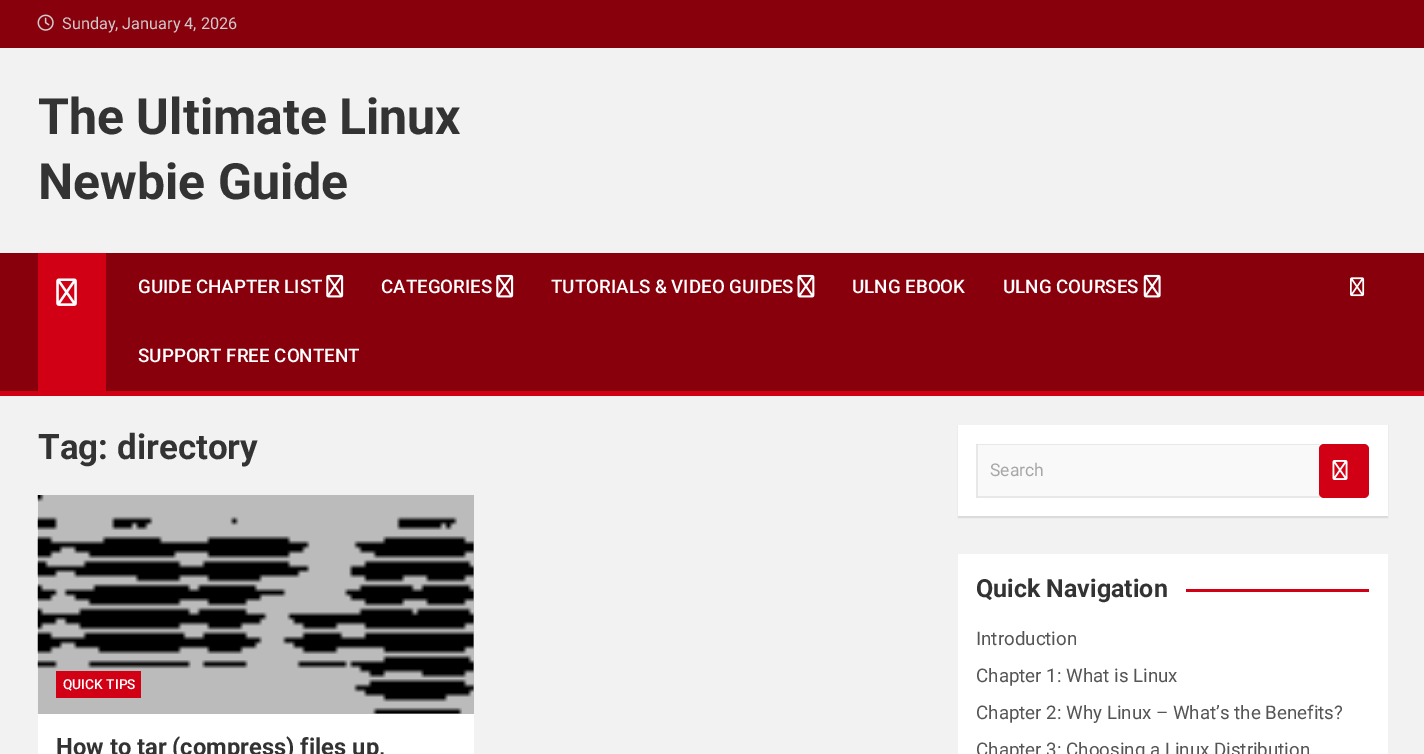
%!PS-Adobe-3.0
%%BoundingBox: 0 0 1424 754
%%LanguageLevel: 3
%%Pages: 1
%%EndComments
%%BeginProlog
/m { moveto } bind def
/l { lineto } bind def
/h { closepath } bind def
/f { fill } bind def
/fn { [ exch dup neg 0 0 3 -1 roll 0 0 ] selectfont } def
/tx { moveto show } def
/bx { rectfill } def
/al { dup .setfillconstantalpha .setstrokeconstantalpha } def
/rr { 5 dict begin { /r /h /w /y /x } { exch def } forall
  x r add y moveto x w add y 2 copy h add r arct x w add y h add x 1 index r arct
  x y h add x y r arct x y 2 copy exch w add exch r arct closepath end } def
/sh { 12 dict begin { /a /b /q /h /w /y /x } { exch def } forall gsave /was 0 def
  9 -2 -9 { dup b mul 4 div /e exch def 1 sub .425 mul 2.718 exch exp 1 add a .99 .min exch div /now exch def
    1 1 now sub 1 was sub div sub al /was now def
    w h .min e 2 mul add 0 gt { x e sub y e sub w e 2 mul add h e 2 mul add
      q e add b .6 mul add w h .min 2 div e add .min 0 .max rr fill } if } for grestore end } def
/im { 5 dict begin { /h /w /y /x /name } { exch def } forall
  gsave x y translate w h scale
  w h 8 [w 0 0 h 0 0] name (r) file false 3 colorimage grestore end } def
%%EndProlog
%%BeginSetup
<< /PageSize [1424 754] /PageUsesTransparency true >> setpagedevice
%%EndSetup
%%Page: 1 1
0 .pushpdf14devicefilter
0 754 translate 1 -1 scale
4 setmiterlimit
0.949 setgray
0 0 1424 754 bx
0.537 0 0.051 setrgbcolor
0 0 1424 48 bx
(image0.raw) 37 14 17 17 im
/Roboto-Regular 16.25 fn
0.8 setgray
(Sunday, January 4, 2026) 62 29 tx
/Roboto-Bold 50 fn
0.2 setgray
(The Ultimate Linux) 38 134 tx
(Newbie Guide) 38 199 tx
0.537 0 0.051 setrgbcolor
0 253 1424 138 bx
0.82 0 0.078 setrgbcolor
0 391 1424 5 bx
38 253 68 138 bx
(image1.raw) 56 278 21 28 im
/Roboto-Medium 18.75 fn
1 setgray
(GUIDE CHAPTER LIST) 138 293 tx
(image2.raw) 326 274 18 24 im
(CATEGORIES) 381 293 tx
(image2.raw) 496 274 18 24 im
(TUTORIALS & VIDEO GUIDES) 551 293 tx
(image3.raw) 797 274 18 24 im
(ULNG EBOOK) 852 293 tx
(ULNG COURSES) 1003 293 tx
(image4.raw) 1143 274 18 24 im
(SUPPORT FREE CONTENT) 138 362 tx
(image5.raw) 1350 277 15 20 im
/Roboto-Bold 35 fn
0.2 setgray
(Tag: directory) 38 459 tx
1 setgray
38 714 436 40 bx
0.733 setgray
38 495 436 219 bx
(image6.raw) 37 495 437 219 im
0.82 0 0.078 setrgbcolor
56 671 85 27 bx
/Roboto-Medium 13.75 fn
1 setgray
(QUICK TIPS) 63 689 tx
/Roboto-Bold 23.75 fn
0.2 setgray
(How to tar \(compress\) files up,) 56 755 tx
0 setgray
958 426 430 92 0 0.5 0.1 sh
1 setgray
958 425 430 91 bx
0.976 setgray
978 445 342 51 bx
0.91 setgray
976 444 m 1320 444 l 1320 445 l 978 445 l h f
1320 498 m 976 498 l 978 496 l 1320 496 l h f
0.09 al
0 setgray
976 498 m 976 444 l 978 445 l 978 496 l h f
/Roboto-Regular 17.5 fn
1 al
0.655 setgray
(Search) 990 476 tx
0.82 0 0.078 setrgbcolor
1319 444 50 54 5 rr f
(image7.raw) 1332 460 16 20 im
1 setgray
958 554 430 200 bx
/Roboto-Bold 25 fn
0.2 setgray
(Quick Navigation) 976 597 tx
0.82 0 0.078 setrgbcolor
1186 589 183 3 bx
/Roboto-Regular 18.75 fn
0.333 setgray
(Introduction) 976 645 tx
(Chapter 1: What is Linux) 976 682 tx
(Chapter 2: Why Linux – What’s the Benefits?) 976 719 tx
(Chapter 3: Choosing a Linux Distribution) 976 756 tx
.poppdf14devicefilter showpage
%%EOF
